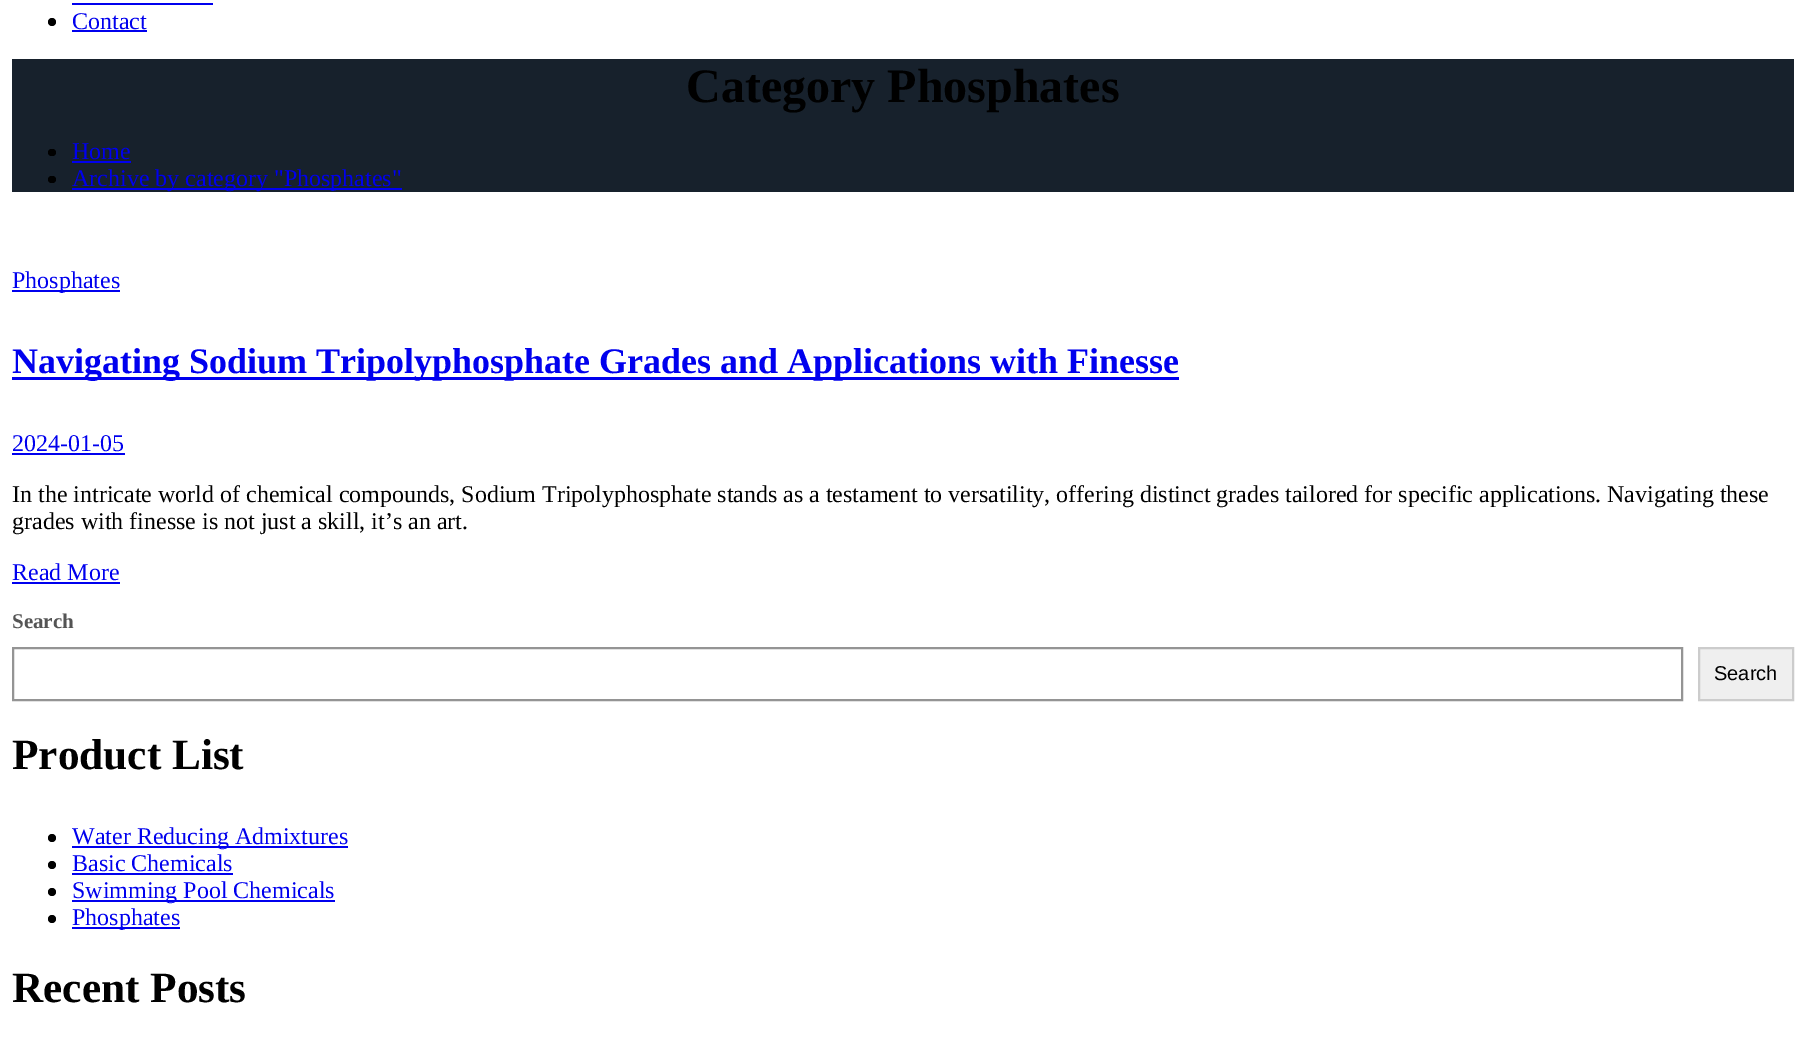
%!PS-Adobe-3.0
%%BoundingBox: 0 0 1806 1054
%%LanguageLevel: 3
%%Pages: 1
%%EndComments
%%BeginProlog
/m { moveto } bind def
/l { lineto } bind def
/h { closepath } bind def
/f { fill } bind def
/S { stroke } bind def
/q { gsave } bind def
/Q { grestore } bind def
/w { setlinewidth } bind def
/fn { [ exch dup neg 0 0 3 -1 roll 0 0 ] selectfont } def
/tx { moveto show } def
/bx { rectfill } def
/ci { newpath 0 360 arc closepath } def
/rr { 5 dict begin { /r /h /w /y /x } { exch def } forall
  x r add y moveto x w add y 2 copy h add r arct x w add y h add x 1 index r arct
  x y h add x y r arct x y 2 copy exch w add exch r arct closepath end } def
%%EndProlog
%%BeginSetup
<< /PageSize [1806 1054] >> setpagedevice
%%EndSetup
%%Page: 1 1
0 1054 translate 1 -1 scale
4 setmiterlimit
1 setgray
0 0 1806 1054 bx
0 0 0.933 setrgbcolor
72 3 141 2 bx
0 setgray
52 22 4 ci f
/LiberationSerif-Regular 24 fn
0 0 0.933 setrgbcolor
(Contact) 72 29 tx
72 30 75 2 bx
0.09 0.129 0.173 setrgbcolor
12 59 1782 133 bx
/LiberationSerif-Bold 48 fn
0 setgray
(Category Phosphates) 686 102 tx
48 149 8 7 3.5 rr f
/LiberationSerif-Regular 24 fn
0 0 0.933 setrgbcolor
(Home) 72 159 tx
72 161 59 2 bx
0 setgray
48 176 8 7 3.5 rr f
0 0 0.933 setrgbcolor
72 188 330 2 bx
(Archive by category "Phosphates") 72 186 tx
12 290 108 2 bx
(Phosphates) 12 288 tx
12 377 1167 3 bx
/LiberationSerif-Bold 36 fn
(Navigating Sodium Tripolyphosphate Grades and Applications with Finesse) 12 373 tx
/LiberationSerif-Regular 24 fn
(2024-01-05) 12 451 tx
12 453 113 2 bx
0 setgray
(In the intricate world of chemical compounds, Sodium Tripolyphosphate stands as a testament to versatility, offering distinct grades tailored for specific applications. Navigating these) 12 502 tx
(grades with finesse is not just a skill, it’s an art.) 12 529 tx
0 0 0.933 setrgbcolor
(Read More) 12 580 tx
12 582 108 2 bx
/LiberationSerif-Bold 21 fn
0.329 setgray
(Search) 12 628 tx
0.58 setgray
2 w
13 648 1669 52 rectstroke
0.937 setgray
1699 648 m 1793 648 l 1793 700 l 1699 700 l h q f Q
0.8 setgray
S
/LiberationSans-Regular 20 fn
0 setgray
(Search) 1714 680 tx
/LiberationSerif-Bold 43.25 fn
(Product List) 12 769 tx
52 838 4 ci f
0 0 0.933 setrgbcolor
72 846 276 2 bx
/LiberationSerif-Regular 24 fn
(Water Reducing Admixtures) 72 844 tx
0 setgray
52 865 4 ci f
0 0 0.933 setrgbcolor
(Basic Chemicals) 72 871 tx
72 873 161 2 bx
0 setgray
52 892 4 ci f
0 0 0.933 setrgbcolor
72 900 263 2 bx
(Swimming Pool Chemicals) 72 898 tx
0 setgray
52 919 4 ci f
0 0 0.933 setrgbcolor
72 927 108 2 bx
(Phosphates) 72 925 tx
/LiberationSerif-Bold 43.25 fn
0 setgray
(Recent Posts) 12 1002 tx
showpage
%%EOF
